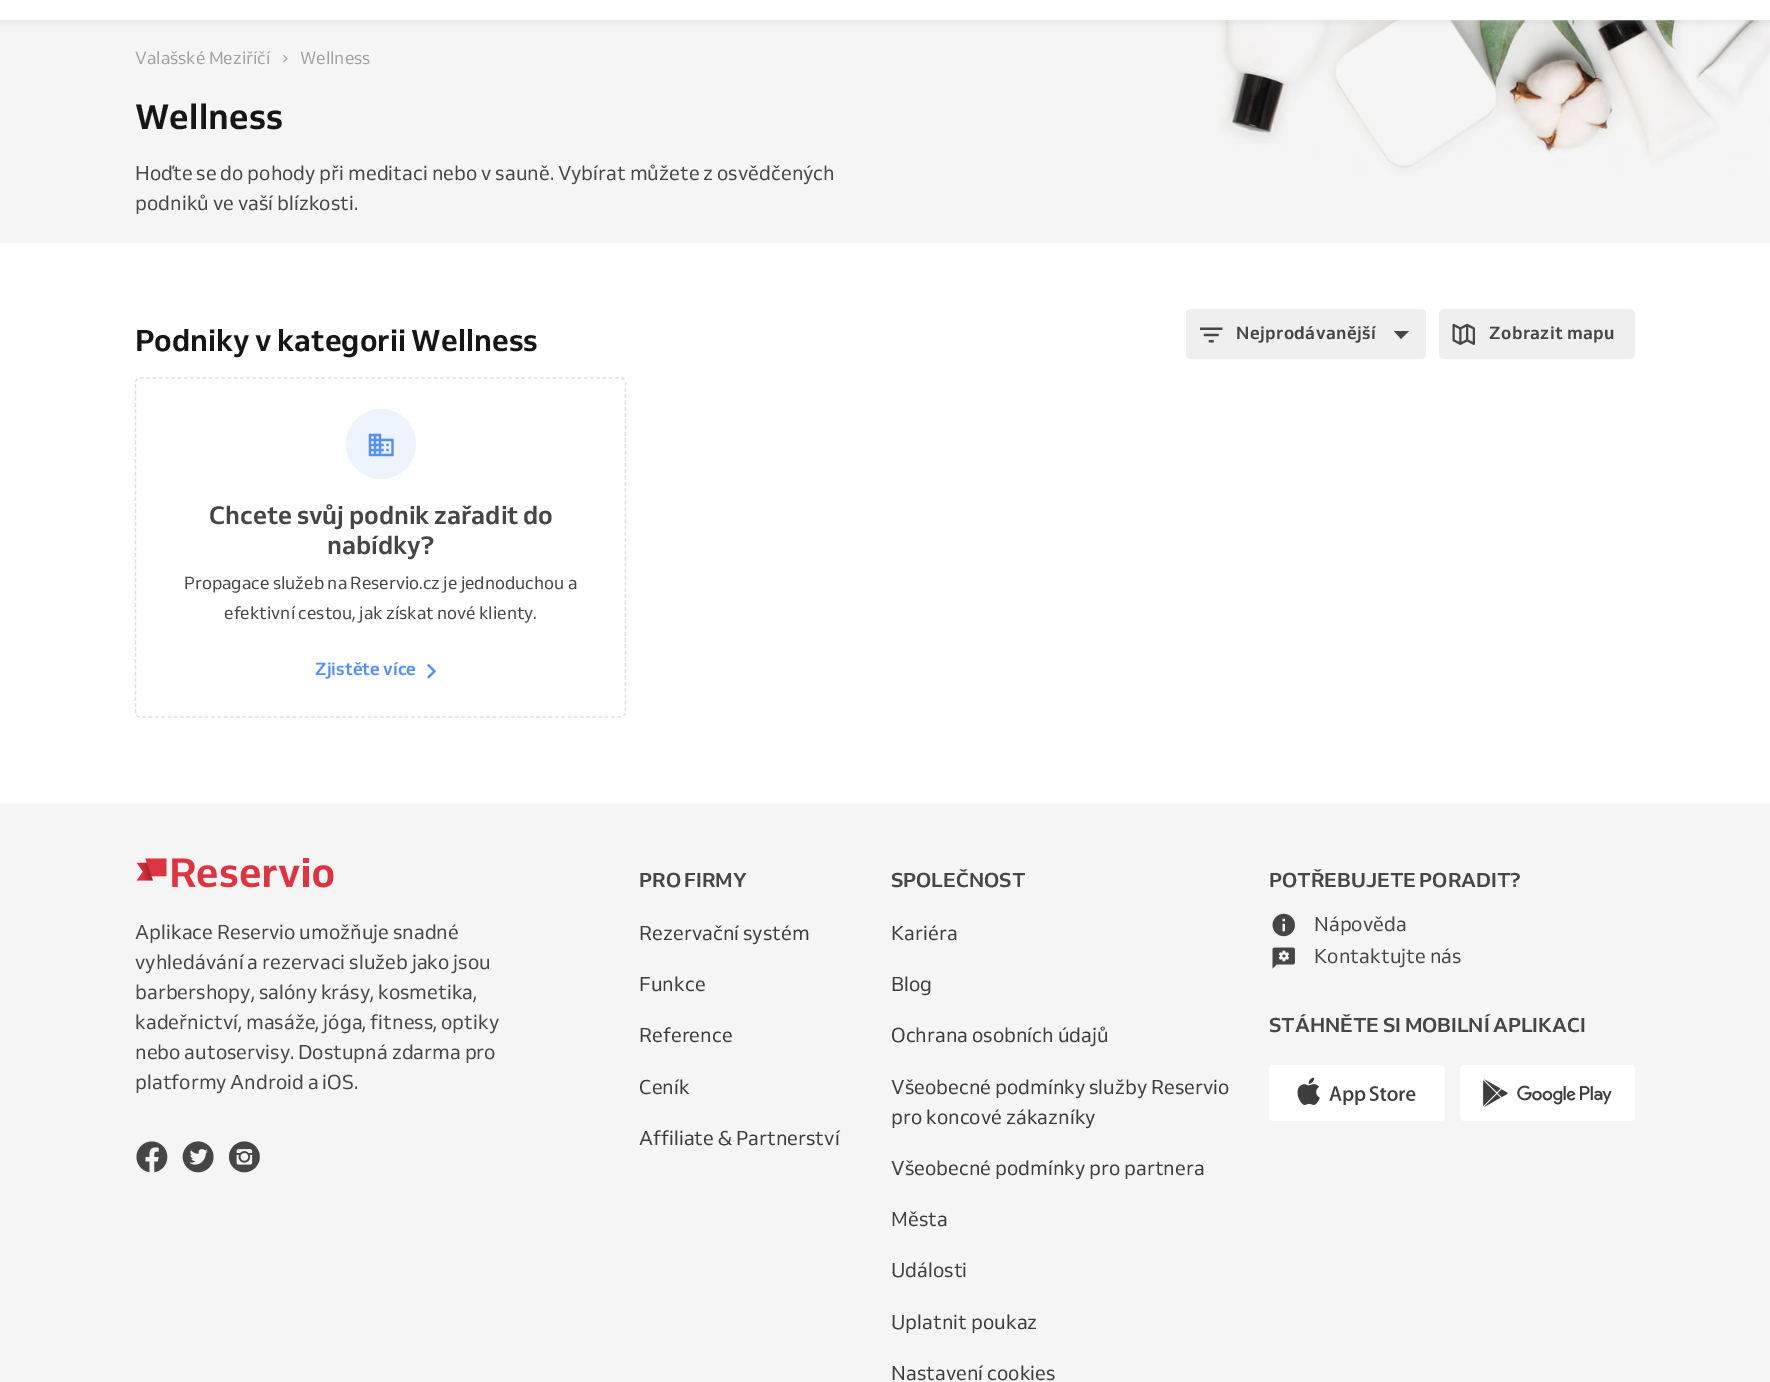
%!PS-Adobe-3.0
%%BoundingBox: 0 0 1770 1382
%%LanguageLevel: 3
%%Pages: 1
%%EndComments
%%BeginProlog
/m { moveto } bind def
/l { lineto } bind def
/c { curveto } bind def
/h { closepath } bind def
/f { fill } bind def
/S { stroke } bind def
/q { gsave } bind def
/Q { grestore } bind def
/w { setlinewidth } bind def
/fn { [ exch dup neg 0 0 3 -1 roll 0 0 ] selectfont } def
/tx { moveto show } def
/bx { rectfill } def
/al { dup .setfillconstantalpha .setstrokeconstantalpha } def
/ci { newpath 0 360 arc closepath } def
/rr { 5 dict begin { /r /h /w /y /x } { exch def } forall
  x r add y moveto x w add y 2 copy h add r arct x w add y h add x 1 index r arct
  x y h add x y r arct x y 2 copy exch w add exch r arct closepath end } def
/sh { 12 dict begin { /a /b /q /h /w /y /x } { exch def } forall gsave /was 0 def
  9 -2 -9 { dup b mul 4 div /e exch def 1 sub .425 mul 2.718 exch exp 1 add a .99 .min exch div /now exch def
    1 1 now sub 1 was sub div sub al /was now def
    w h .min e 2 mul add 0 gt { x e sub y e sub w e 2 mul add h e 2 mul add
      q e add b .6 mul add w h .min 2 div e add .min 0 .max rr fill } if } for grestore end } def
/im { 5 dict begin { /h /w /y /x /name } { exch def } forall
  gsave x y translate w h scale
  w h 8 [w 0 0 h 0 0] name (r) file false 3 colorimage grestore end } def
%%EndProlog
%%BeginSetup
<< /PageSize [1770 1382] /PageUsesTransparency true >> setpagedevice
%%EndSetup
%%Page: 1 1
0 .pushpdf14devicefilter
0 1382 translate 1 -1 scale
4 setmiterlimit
1 setgray
0 0 1770 1382 bx
0.961 setgray
0 20 1770 223 bx
(image0.raw) 1219 20 551 156 im
q
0 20 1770 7 rectclip
0.741 setgray
0 -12 1770 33 0 4 0.35 sh
Q
/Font-Regular 17.5 fn
0.635 setgray
(Valašské Meziříčí) 135 64 tx
(image1.raw) 283 54 5 9 im
(Wellness) 300 64 tx
/Font-Bold 35 fn
0.086 setgray
(Wellness) 135 129 tx
/Font-Regular 20 fn
0.275 setgray
(Hoďte se do pohody při meditaci nebo v sauně. Vybírat můžete z osvědčených) 135 180 tx
(podniků ve vaší blízkosti.) 135 210 tx
/Font-Bold 30 fn
0.086 setgray
(Podniky v kategorii Wellness) 135 351 tx
0.937 setgray
1186 309 240 50 5 rr f
(image2.raw) 1200 327 23 16 im
/Font-Bold 17.5 fn
0.275 setgray
1236 339 m 0.4 0 (Nejprodávanější) ashow
1394 331 m 1401 339 l 1409 331 l h f
0.937 setgray
1439 309 196 50 5 rr f
(image3.raw) 1452 323 23 22 im
0.275 setgray
1489 339 m 0.4 0 (Zobrazit mapu) ashow
0.878 setgray
1.2 w
[3.75 2.5] 0 setdash
140 378 m 621 378 l 623.5 378 625.5 380 625.5 382.5 c 625.5 712.5 l 625.5 715 623.5 717 621 717 c 140 717 l 137.5 717 135.5 715 135.5 712.5 c 135.5 382.5 l 135.5 380 137.5 378 140 378 c h S
0.933 0.957 0.996 setrgbcolor
381 444 35 ci f
(image4.raw) 368 433 26 24 im
/Font-Bold 25 fn
0.275 setgray
(Chcete svůj podnik zařadit do) 209 524 tx
(nabídky?) 327 554 tx
/Font-Regular 17.5 fn
(Propagace služeb na Reservio.cz je jednoduchou a) 184 589 tx
(efektivní cestou, jak získat nové klienty.) 224 619 tx
/Font-Bold 17.5 fn
0.337 0.565 0.961 setrgbcolor
(Zjistěte více) 315 675 tx
(image5.raw) 427 663 10 16 im
0.961 setgray
0 803 1770 579 bx
(image6.raw) 136 858 198 30 im
/Font-Regular 20 fn
0.275 setgray
(Aplikace Reservio umožňuje snadné) 135 939 tx
(vyhledávání a rezervaci služeb jako jsou) 135 969 tx
(barbershopy, salóny krásy, kosmetika,) 135 999 tx
(kadeřnictví, masáže, jóga, fitness, optiky) 135 1029 tx
(nebo autoservisy. Dostupná zdarma pro) 135 1059 tx
(platformy Android a iOS.) 135 1089 tx
(image7.raw) 136 1141 32 32 im
(image8.raw) 182 1141 32 32 im
(image9.raw) 228 1141 32 32 im
/Font-Bold 20 fn
(PRO FIRMY) 639 887 tx
/Font-Regular 20 fn
0.239 setgray
(Rezervační systém) 639 940 tx
(Funkce) 639 991 tx
(Reference) 639 1042 tx
(Ceník) 639 1094 tx
(Affiliate & Partnerství) 639 1145 tx
/Font-Bold 20 fn
0.275 setgray
(SPOLEČNOST) 891 887 tx
/Font-Regular 20 fn
0.239 setgray
(Kariéra) 891 940 tx
(Blog) 891 991 tx
(Ochrana osobních údajů) 891 1042 tx
(Všeobecné podmínky služby Reservio) 891 1094 tx
(pro koncové zákazníky) 891 1124 tx
(Všeobecné podmínky pro partnera) 891 1175 tx
(Města) 891 1226 tx
(Události) 891 1277 tx
(Uplatnit poukaz) 891 1329 tx
(Nastavení cookies) 891 1380 tx
/Font-Bold 20 fn
0.275 setgray
(POTŘEBUJETE PORADIT?) 1269 887 tx
(image10.raw) 1272 913 23 24 im
/Font-Regular 20 fn
(Nápověda) 1314 931 tx
(image11.raw) 1272 947 23 22 im
(Kontaktujte nás) 1314 963 tx
/Font-Bold 20 fn
(STÁHNĚTE SI MOBILNÍ APLIKACI) 1269 1032 tx
1 setgray
1269 1065 176 56 5 rr f
(image12.raw) 1297 1077 119 28 im
1460 1065 175 56 5 rr f
(image13.raw) 1483 1079 129 28 im
.poppdf14devicefilter showpage
%%EOF
